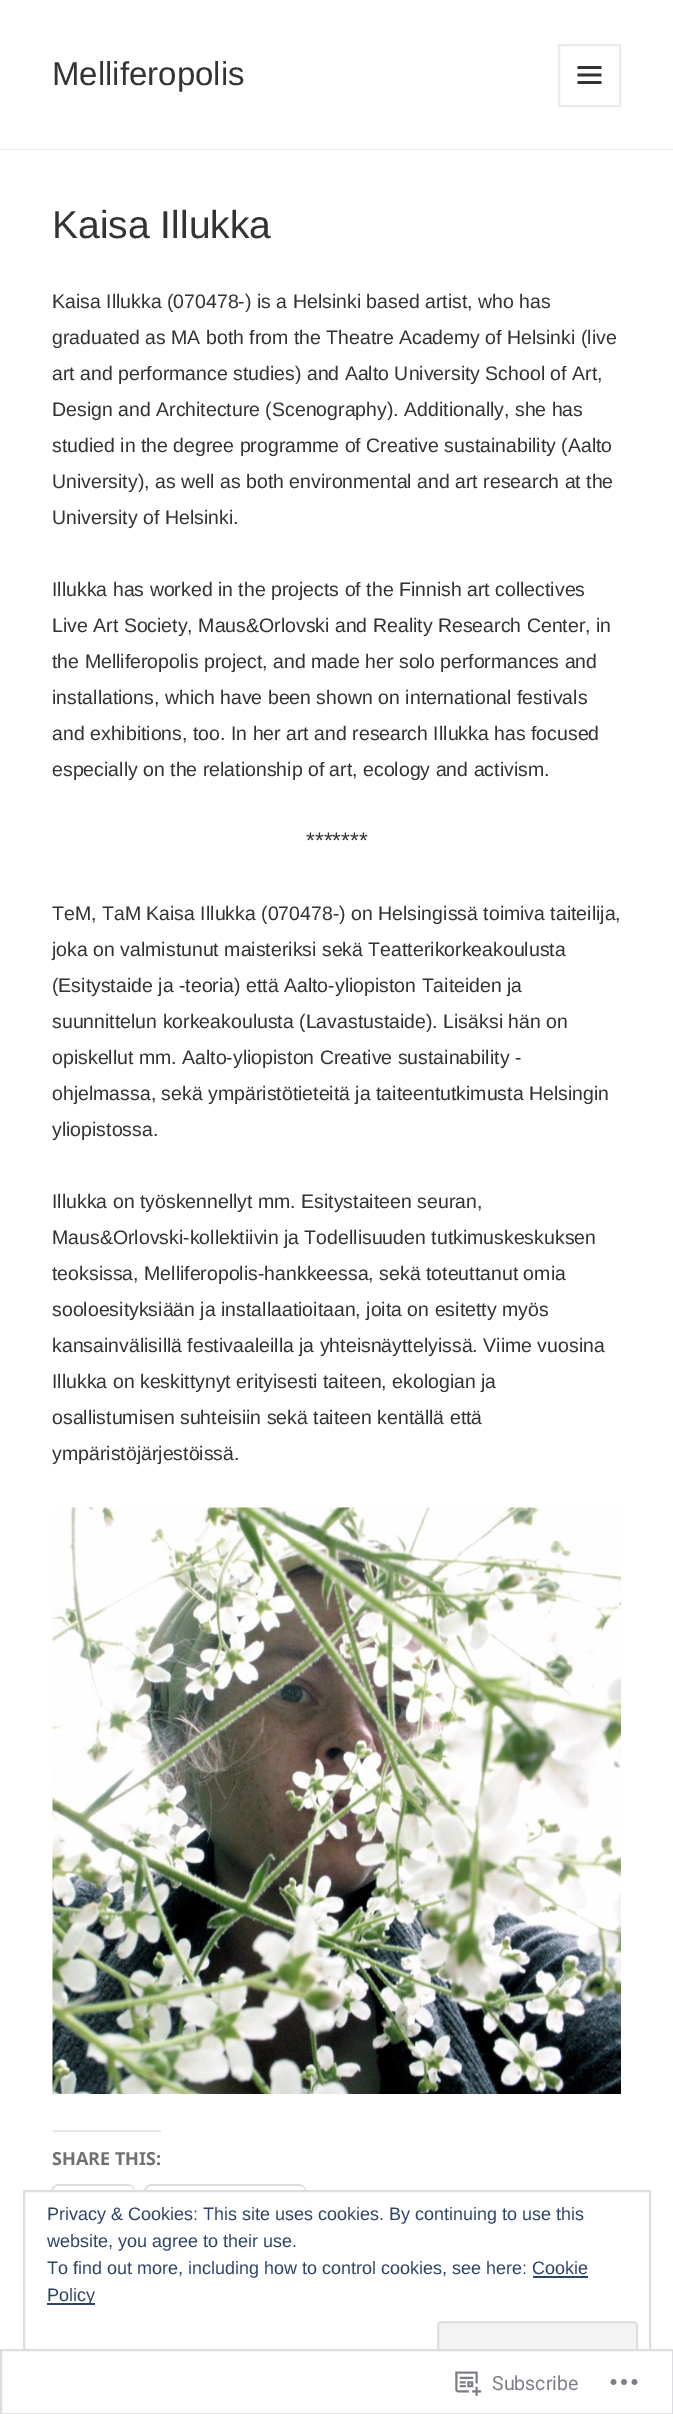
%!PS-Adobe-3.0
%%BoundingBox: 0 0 673 2414
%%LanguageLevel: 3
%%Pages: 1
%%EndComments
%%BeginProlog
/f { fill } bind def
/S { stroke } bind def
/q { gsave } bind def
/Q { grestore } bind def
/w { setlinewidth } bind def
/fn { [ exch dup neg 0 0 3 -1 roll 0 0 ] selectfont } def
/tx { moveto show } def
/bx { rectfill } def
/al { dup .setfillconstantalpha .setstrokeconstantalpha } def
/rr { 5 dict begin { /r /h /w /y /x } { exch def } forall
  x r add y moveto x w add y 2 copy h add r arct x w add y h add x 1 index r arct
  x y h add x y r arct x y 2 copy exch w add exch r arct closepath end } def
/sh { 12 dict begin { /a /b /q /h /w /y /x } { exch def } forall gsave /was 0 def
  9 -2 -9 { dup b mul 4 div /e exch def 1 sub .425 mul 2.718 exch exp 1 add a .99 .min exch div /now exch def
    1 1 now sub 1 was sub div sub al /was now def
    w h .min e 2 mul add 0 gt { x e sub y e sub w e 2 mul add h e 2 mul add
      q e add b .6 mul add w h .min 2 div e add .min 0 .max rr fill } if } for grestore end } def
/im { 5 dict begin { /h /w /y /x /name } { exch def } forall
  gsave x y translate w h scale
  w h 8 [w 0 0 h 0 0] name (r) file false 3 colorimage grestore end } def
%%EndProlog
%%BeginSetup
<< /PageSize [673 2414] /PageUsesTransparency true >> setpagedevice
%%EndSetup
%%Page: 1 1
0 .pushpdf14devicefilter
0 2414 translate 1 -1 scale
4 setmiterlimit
1 setgray
0 0 673 2414 bx
0.922 setgray
0 149 673 1 bx
/Arimo-Regular 33 fn
0.2 setgray
(Melliferopolis) 52 85 tx
0.922 setgray
2 w
559 45 61 61 rectstroke
(image0.raw) 577 66 25 18 im
/Arimo-Regular 39 fn
0.2 setgray
(Kaisa Illukka) 52 238 tx
/LiberationSans-Regular 19.5 fn
(Kaisa Illukka \(070478-\) is a Helsinki based artist, who has) 52 308 tx
(graduated as MA both from the Theatre Academy of Helsinki \(live) 52 344 tx
(art and performance studies\) and Aalto University School of Art,) 52 380 tx
(Design and Architecture \(Scenography\). Additionally, she has) 52 416 tx
(studied in the degree programme of Creative sustainability \(Aalto) 52 452 tx
(University\), as well as both environmental and art research at the) 52 488 tx
(University of Helsinki.) 52 524 tx
(Illukka has worked in the projects of the Finnish art collectives) 52 596 tx
(Live Art Society, Maus&Orlovski and Reality Research Center, in) 52 632 tx
(the Melliferopolis project, and made her solo performances and) 52 668 tx
(installations, which have been shown on international festivals) 52 704 tx
(and exhibitions, too. In her art and research Illukka has focused) 52 740 tx
(especially on the relationship of art, ecology and activism.) 52 776 tx
/Arimo-Regular 22.5 fn
(*******) 306 848 tx
/LiberationSans-Regular 19.5 fn
(TeM, TaM Kaisa Illukka \(070478-\) on Helsingissä toimiva taiteilija,) 52 920 tx
(joka on valmistunut maisteriksi sekä Teatterikorkeakoulusta) 52 956 tx
(\(Esitystaide ja -teoria\) että Aalto-yliopiston Taiteiden ja) 52 992 tx
(suunnittelun korkeakoulusta \(Lavastustaide\). Lisäksi hän on) 52 1028 tx
(opiskellut mm. Aalto-yliopiston Creative sustainability -) 52 1064 tx
(ohjelmassa, sekä ympäristötieteitä ja taiteentutkimusta Helsingin) 52 1100 tx
(yliopistossa.) 52 1136 tx
(Illukka on työskennellyt mm. Esitystaiteen seuran,) 52 1208 tx
(Maus&Orlovski-kollektiivin ja Todellisuuden tutkimuskeskuksen) 52 1244 tx
(teoksissa, Melliferopolis-hankkeessa, sekä toteuttanut omia) 52 1280 tx
(sooloesityksiään ja installaatioitaan, joita on esitetty myös) 52 1316 tx
(kansainvälisillä festivaaleilla ja yhteisnäyttelyissä. Viime vuosina) 52 1352 tx
(Illukka on keskittynyt erityisesti taiteen, ekologian ja) 52 1388 tx
(osallistumisen suhteisiin sekä taiteen kentällä että) 52 1424 tx
(ympäristöjärjestöissä.) 52 1460 tx
(image1.raw) 52 1507 569 587 im
0.906 0.906 0.91 setrgbcolor
53 2130 108 2 bx
/NotoSans-Bold 18 fn
0.439 setgray
(SHARE THIS:) 52 2165 tx
0.878 setgray
52 2185 82 48 7 rr S
0 setgray
53 2187 81 47 6 1.5 0.12 sh
1 setgray
53 2186 81 46 6 rr f
0.878 setgray
145 2185 160 48 7 rr S
0 setgray
146 2187 159 47 6 1.5 0.12 sh
1 setgray
146 2186 159 46 6 rr f
0.922 setgray
0 2400 673 2 bx
1 setgray
51 2192 256 44 bx
0.871 setgray
24 2191 626 201 rectstroke
/Arimo-Regular 18 fn
0.18 0.267 0.404 setrgbcolor
(Privacy & Cookies: This site uses cookies. By continuing to use this) 47 2220 tx
(website, you agree to their use.) 47 2247 tx
(To find out more, including how to control cookies, see here: Cookie) 47 2274 tx
47 2303 48 2 bx
(Policy) 47 2301 tx
533 2276 55 2 bx
0.953 setgray
438 2322 199 56 4 rr q f Q
0.871 setgray
S
0.98 al
1 setgray
0 2349 673 53 bx
0.863 0.863 0.871 setrgbcolor
1 2350 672 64 rectstroke
1 al
(image2.raw) 455 2371 27 25 im
/Roboto-Regular 19.5 fn
0.482 0.498 0.518 setrgbcolor
(Subscribe) 492 2390 tx
(image3.raw) 610 2379 28 6 im
.poppdf14devicefilter showpage
%%EOF
